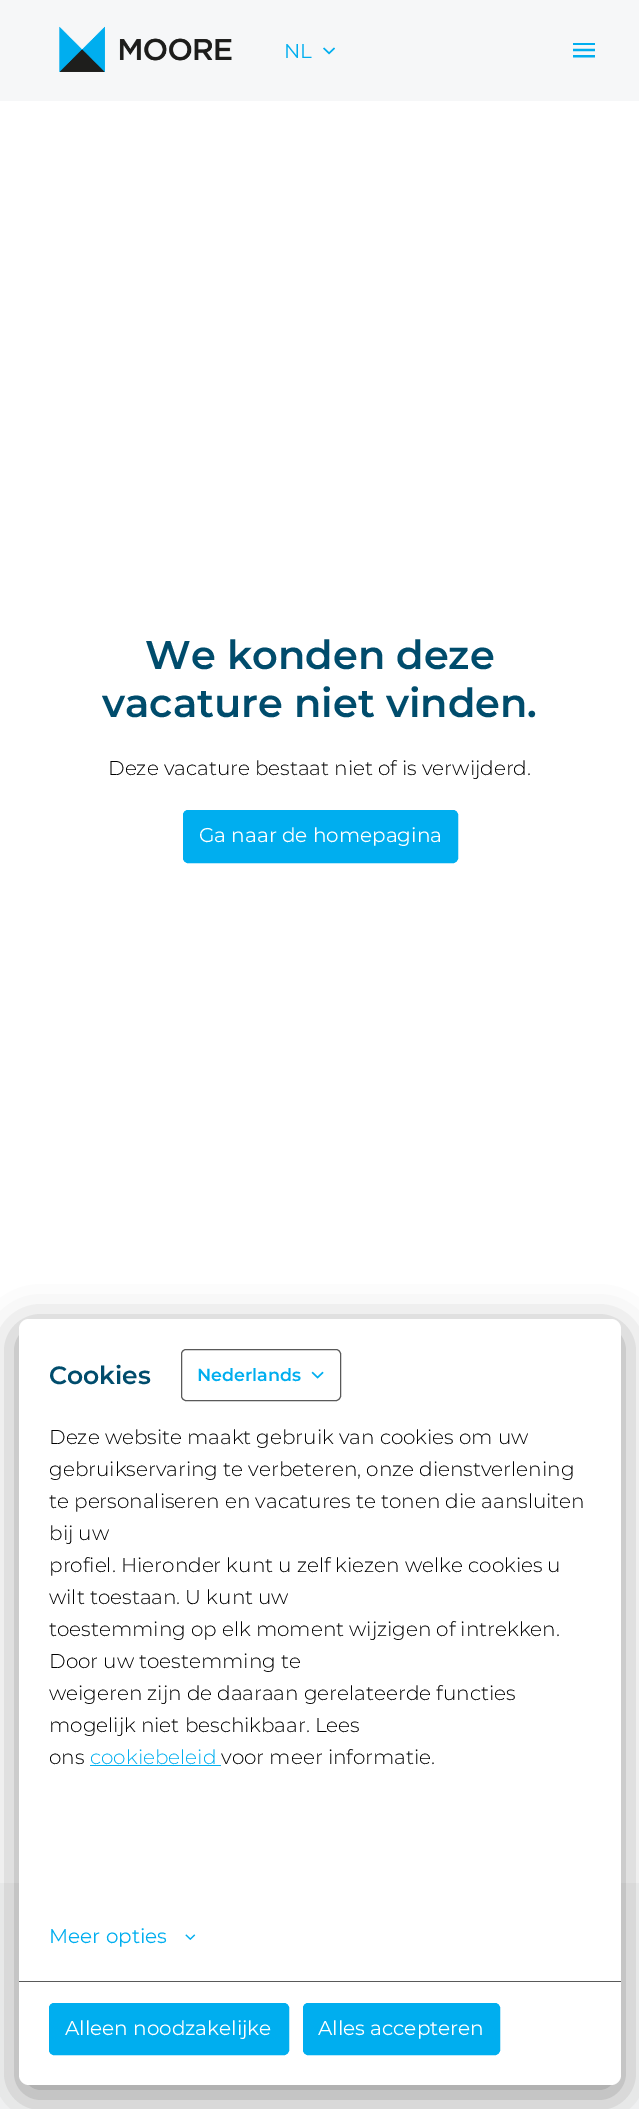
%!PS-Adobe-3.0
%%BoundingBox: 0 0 639 2109
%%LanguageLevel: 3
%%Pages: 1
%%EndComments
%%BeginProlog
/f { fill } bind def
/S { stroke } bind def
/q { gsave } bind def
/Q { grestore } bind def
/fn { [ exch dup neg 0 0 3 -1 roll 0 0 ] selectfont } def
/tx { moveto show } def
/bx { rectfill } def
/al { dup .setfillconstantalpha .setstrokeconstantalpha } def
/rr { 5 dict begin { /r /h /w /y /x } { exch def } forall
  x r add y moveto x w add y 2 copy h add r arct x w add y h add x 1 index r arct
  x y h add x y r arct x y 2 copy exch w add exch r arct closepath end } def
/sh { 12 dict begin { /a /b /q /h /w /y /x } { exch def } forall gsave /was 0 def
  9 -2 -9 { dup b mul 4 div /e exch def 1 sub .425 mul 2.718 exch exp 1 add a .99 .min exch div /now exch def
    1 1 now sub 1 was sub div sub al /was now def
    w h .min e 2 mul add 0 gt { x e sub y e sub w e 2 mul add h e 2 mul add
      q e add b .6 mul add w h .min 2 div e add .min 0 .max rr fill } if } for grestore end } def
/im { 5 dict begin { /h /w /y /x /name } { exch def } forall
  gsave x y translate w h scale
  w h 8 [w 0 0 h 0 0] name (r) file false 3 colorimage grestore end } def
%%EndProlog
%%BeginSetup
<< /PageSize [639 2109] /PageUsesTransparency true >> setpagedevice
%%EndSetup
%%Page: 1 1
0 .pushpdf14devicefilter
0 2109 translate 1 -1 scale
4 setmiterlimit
1 setgray
0 0 639 2109 bx
0.965 0.969 0.973 setrgbcolor
0 0 639 101 bx
(image0.raw) 59 26 173 46 im
/Montserrat-Regular 20 fn
0 0.682 0.937 setrgbcolor
(NL) 284 58 tx
(image1.raw) 323 47 12 8 im
(image2.raw) 573 43 22 15 im
/Montserrat-SemiBold 40 fn
0 0.298 0.424 setrgbcolor
(We konden deze) 145 669 tx
(vacature niet vinden.) 102 717 tx
/Montserrat-Light 20 fn
0 setgray
(Deze vacature bestaat niet of is verwijderd.) 108 775 tx
0 0.682 0.937 setrgbcolor
183.5 810.5 274 52 4.5 rr q f Q
S
/Montserrat-Regular 20 fn
1 setgray
(Ga naar de homepagina) 199 842 tx
0.965 0.969 0.973 setrgbcolor
0 1883 639 226 bx
0 setgray
19 1329 602 766 10 20 0.4 sh
1 setgray
19 1319 602 766 10 rr f
/Montserrat-SemiBold 25 fn
0 0.298 0.424 setrgbcolor
(Cookies) 49 1384 tx
0.349 setgray
181.5 1349.5 159 51 4.5 rr S
/Montserrat-SemiBold 17.5 fn
0 0.682 0.937 setrgbcolor
(Nederlands) 197 1381 tx
(image3.raw) 311 1371 13 8 im
/Montserrat-Light 20 fn
0 setgray
(Deze website maakt gebruik van cookies om uw) 49 1444 tx
(gebruikservaring te verbeteren, onze dienstverlening) 49 1476 tx
(te personaliseren en vacatures te tonen die aansluiten) 49 1508 tx
(bij uw) 49 1540 tx
(profiel. Hieronder kunt u zelf kiezen welke cookies u) 49 1572 tx
(wilt toestaan. U kunt uw) 49 1604 tx
(toestemming op elk moment wijzigen of intrekken.) 49 1636 tx
(Door uw toestemming te) 49 1668 tx
(weigeren zijn de daaraan gerelateerde functies) 49 1700 tx
(mogelijk niet beschikbaar. Lees) 49 1732 tx
(ons) 49 1764 tx
0 0.682 0.937 setrgbcolor
(cookiebeleid) 90 1764 tx
90 1765 131 1 bx
0 setgray
(voor meer informatie.) 221 1764 tx
/Montserrat-Regular 20 fn
0 0.682 0.937 setrgbcolor
(Meer opties) 49 1943 tx
(image4.raw) 185 1934 11 6 im
0.349 setgray
19 1981 602 1 bx
0 0.682 0.937 setrgbcolor
49.5 2003.5 239 51 4.5 rr q f Q
S
1 setgray
(Alleen noodzakelijke) 65 2035 tx
0 0.682 0.937 setrgbcolor
303.5 2003.5 196 51 4.5 rr q f Q
S
1 setgray
(Alles accepteren) 318 2035 tx
.poppdf14devicefilter showpage
%%EOF
